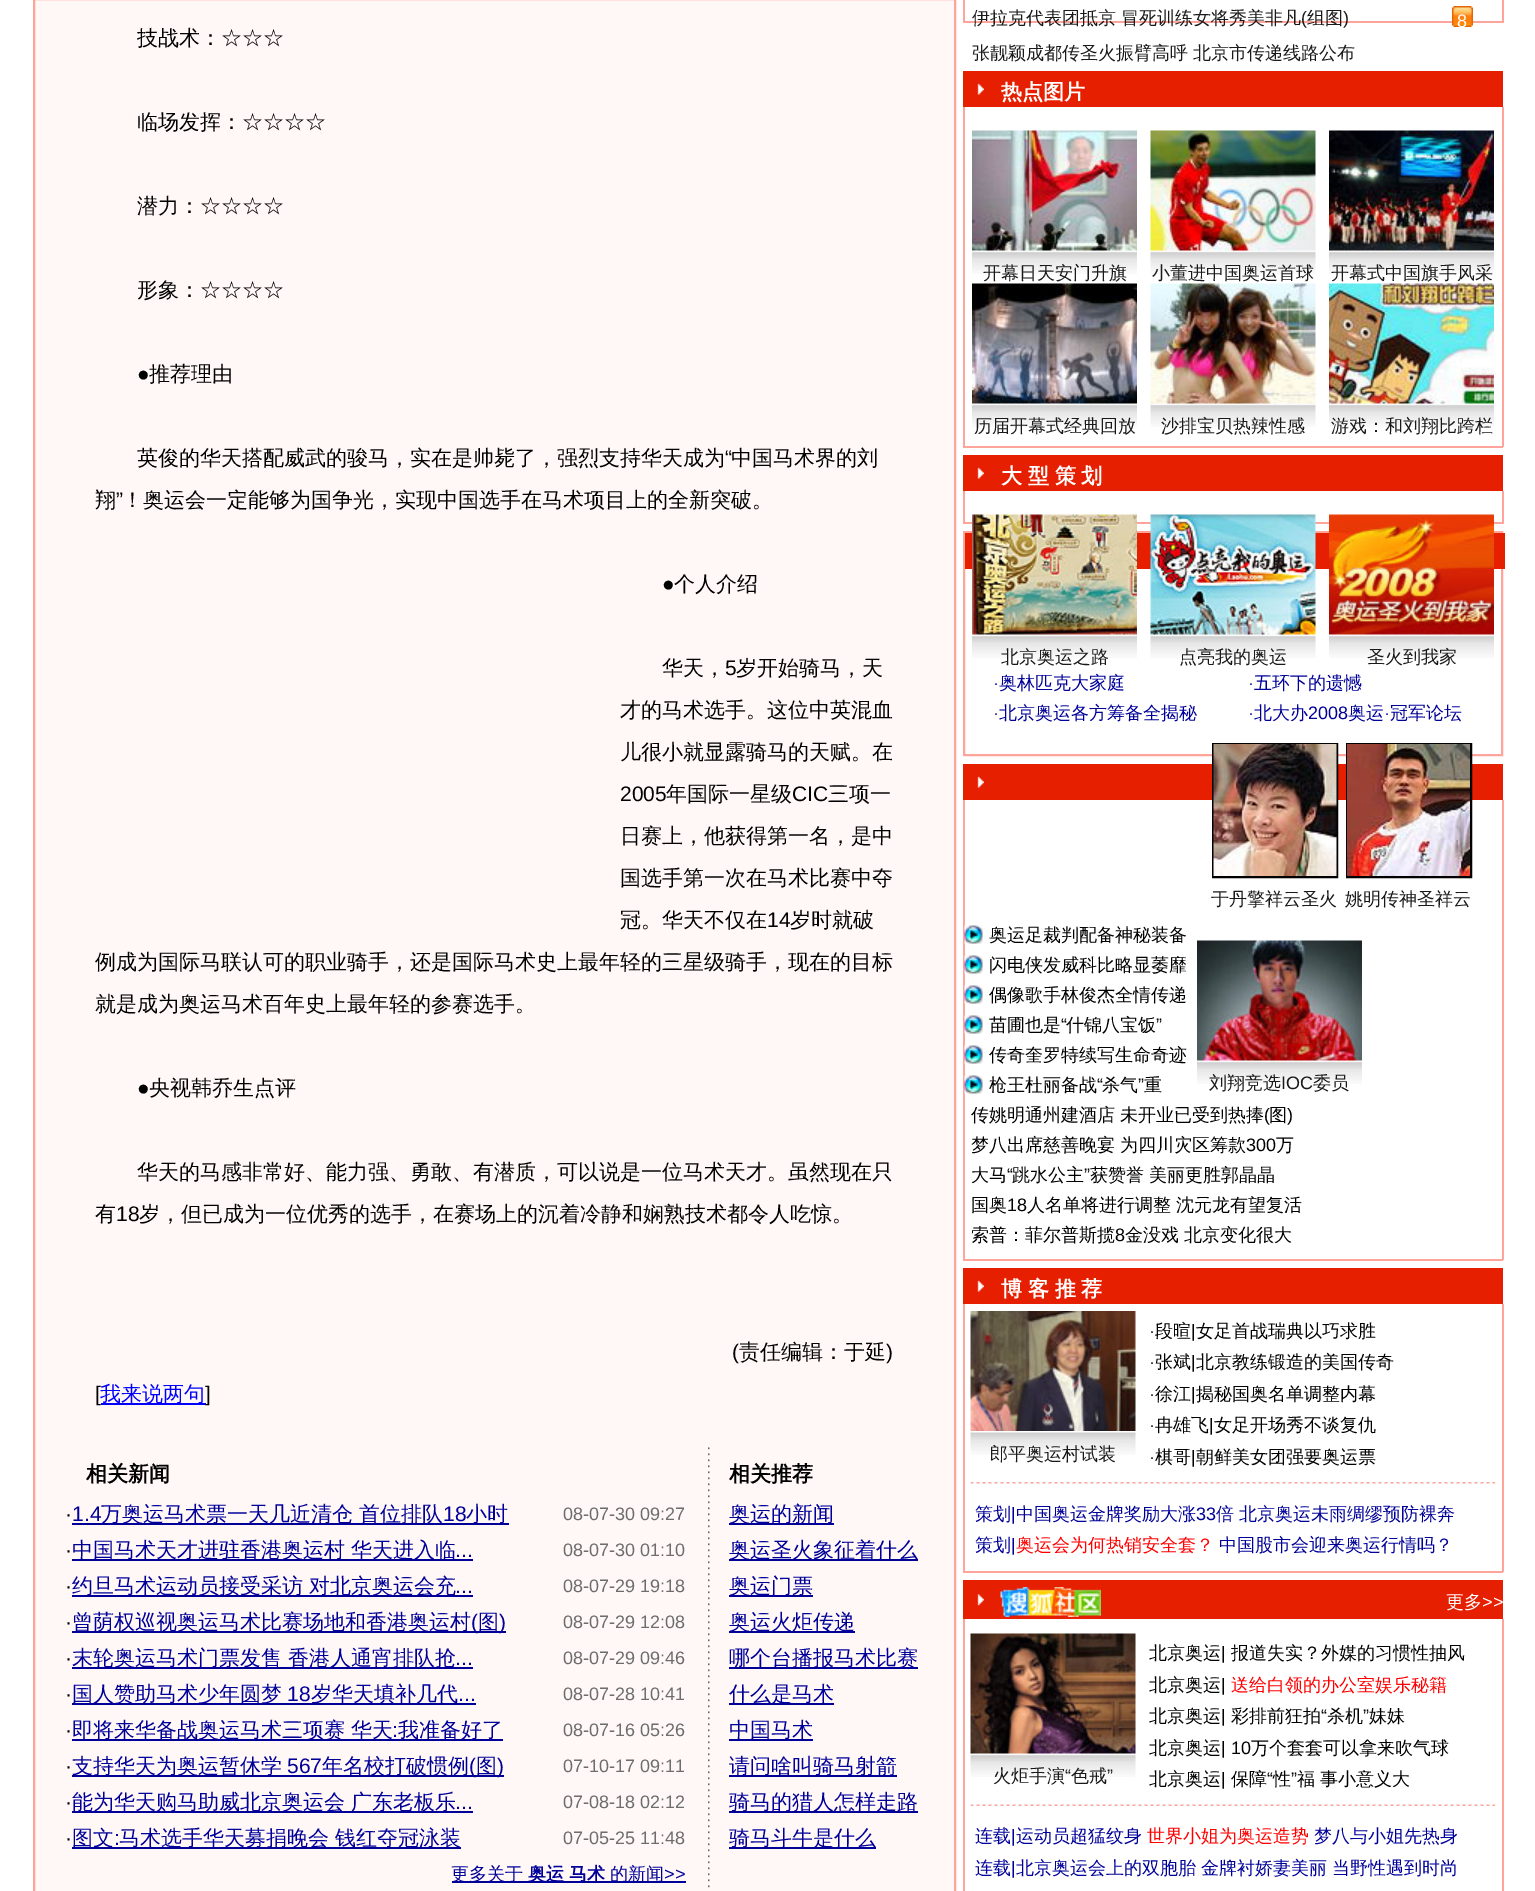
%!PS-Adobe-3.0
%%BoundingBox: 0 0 1535 1891
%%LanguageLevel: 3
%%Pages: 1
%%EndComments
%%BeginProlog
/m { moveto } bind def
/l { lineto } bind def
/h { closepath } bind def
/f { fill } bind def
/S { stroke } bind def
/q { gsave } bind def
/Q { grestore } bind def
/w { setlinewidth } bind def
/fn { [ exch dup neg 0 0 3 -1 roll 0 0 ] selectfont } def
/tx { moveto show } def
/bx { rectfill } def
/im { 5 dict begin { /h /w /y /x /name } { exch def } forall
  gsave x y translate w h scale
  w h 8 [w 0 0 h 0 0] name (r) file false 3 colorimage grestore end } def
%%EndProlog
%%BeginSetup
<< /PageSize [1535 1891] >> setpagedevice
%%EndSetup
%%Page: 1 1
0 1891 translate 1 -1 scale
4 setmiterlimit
1 setgray
0 0 1535 1891 bx
1 0.973 0.965 setrgbcolor
34 -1 m 955 -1 l 955 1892 l 34 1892 l h q f Q
1 0.643 0.608 setrgbcolor
2 w
S
/WenQuanYiZenHei-Medium 21 fn
0 setgray
(技战术：☆☆☆) 137 45 tx
(临场发挥：☆☆☆☆) 137 129 tx
(潜力：☆☆☆☆) 137 213 tx
(形象：☆☆☆☆) 137 297 tx
/LiberationSans-Regular 21 fn
(●) 137 381 tx
/WenQuanYiZenHei-Medium 21 fn
(推荐理由) 149 381 tx
(英俊的华天搭配威武的骏马，实在是帅毙了，强烈支持华天成为) 137 465 tx
/LiberationSans-Regular 21 fn
(“) 725 465 tx
/WenQuanYiZenHei-Medium 21 fn
(中国马术界的刘) 731 465 tx
(翔) 95 507 tx
/LiberationSans-Regular 21 fn
(”) 116 507 tx
/WenQuanYiZenHei-Medium 21 fn
(！奥运会一定能够为国争光，实现中国选手在马术项目上的全新突破。) 122 507 tx
/LiberationSans-Regular 21 fn
(●) 662 591 tx
/WenQuanYiZenHei-Medium 21 fn
(个人介绍) 674 591 tx
(华天，) 662 675 tx
/LiberationSans-Regular 21 fn
(5) 725 675 tx
/WenQuanYiZenHei-Medium 21 fn
(岁开始骑马，天) 736 675 tx
(才的马术选手。这位中英混血) 620 717 tx
(儿很小就显露骑马的天赋。在) 620 759 tx
/LiberationSans-Regular 21 fn
(2005) 620 801 tx
/WenQuanYiZenHei-Medium 21 fn
(年国际一星级) 666 801 tx
/LiberationSans-Regular 21 fn
(CIC) 792 801 tx
/WenQuanYiZenHei-Medium 21 fn
(三项一) 828 801 tx
(日赛上，他获得第一名，是中) 620 843 tx
(国选手第一次在马术比赛中夺) 620 885 tx
(冠。华天不仅在) 620 927 tx
/LiberationSans-Regular 21 fn
(14) 767 927 tx
/WenQuanYiZenHei-Medium 21 fn
(岁时就破) 790 927 tx
(例成为国际马联认可的职业骑手，还是国际马术史上最年轻的三星级骑手，现在的目标) 95 969 tx
(就是成为奥运马术百年史上最年轻的参赛选手。) 95 1011 tx
/LiberationSans-Regular 21 fn
(●) 137 1095 tx
/WenQuanYiZenHei-Medium 21 fn
(央视韩乔生点评) 149 1095 tx
(华天的马感非常好、能力强、勇敢、有潜质，可以说是一位马术天才。虽然现在只) 137 1179 tx
(有) 95 1221 tx
/LiberationSans-Regular 21 fn
(18) 116 1221 tx
/WenQuanYiZenHei-Medium 21 fn
(岁，但已成为一位优秀的选手，在赛场上的沉着冷静和娴熟技术都令人吃惊。) 139 1221 tx
/LiberationSans-Regular 21 fn
(\() 732 1359 tx
/WenQuanYiZenHei-Medium 21 fn
(责任编辑：于延) 739 1359 tx
/LiberationSans-Regular 21 fn
(\)) 886 1359 tx
([) 95 1401 tx
0 0 1 setrgbcolor
101 1403 105 2 bx
/WenQuanYiZenHei-Medium 21 fn
(我来说两句) 100 1401 tx
/LiberationSans-Regular 21 fn
0 setgray
(]) 205 1401 tx
(image0.raw) 708 1447 2 441 im
/WenQuanYiZenHei-Bold 21 fn
(相关新闻) 86 1481 tx
/LiberationSans-Regular 21 fn
(·) 65 1521 tx
0 0 0.6 setrgbcolor
(1.4) 72 1521 tx
72 1523 437 2 bx
/WenQuanYiZenHei-Medium 21 fn
101 1521 m -0.5 0 32 (万奥运马术票一天几近清仓 首位排队) widthshow
/LiberationSans-Regular 21 fn
(18) 443 1521 tx
/WenQuanYiZenHei-Medium 21 fn
(小时) 466 1521 tx
/LiberationSans-Regular 18 fn
0.427 setgray
(08-07-30 09:27) 563 1520 tx
/LiberationSans-Regular 21 fn
0 setgray
(·) 65 1557 tx
0 0 0.6 setrgbcolor
72 1559 401 2 bx
/WenQuanYiZenHei-Medium 21 fn
72 1557 m -0.5 0 32 (中国马术天才进驻香港奥运村 华天进入临) widthshow
/LiberationSans-Regular 18 fn
0.427 setgray
(08-07-30 01:10) 563 1556 tx
/LiberationSans-Regular 21 fn
0 0 0.6 setrgbcolor
(...) 455 1557 tx
0 setgray
(·) 65 1593 tx
0 0 0.6 setrgbcolor
72 1595 401 2 bx
/WenQuanYiZenHei-Medium 21 fn
72 1593 m -0.5 0 32 (约旦马术运动员接受采访 对北京奥运会充) widthshow
/LiberationSans-Regular 18 fn
0.427 setgray
(08-07-29 19:18) 563 1592 tx
/LiberationSans-Regular 21 fn
0 0 0.6 setrgbcolor
(...) 455 1593 tx
0 setgray
(·) 65 1629 tx
0 0 0.6 setrgbcolor
72 1631 434 2 bx
/WenQuanYiZenHei-Medium 21 fn
(曾荫权巡视奥运马术比赛场地和香港奥运村) 72 1629 tx
/LiberationSans-Regular 21 fn
(\() 471 1629 tx
/WenQuanYiZenHei-Medium 21 fn
(图) 478 1629 tx
/LiberationSans-Regular 21 fn
(\)) 499 1629 tx
/LiberationSans-Regular 18 fn
0.427 setgray
(08-07-29 12:08) 563 1628 tx
/LiberationSans-Regular 21 fn
0 setgray
(·) 65 1665 tx
0 0 0.6 setrgbcolor
72 1667 401 2 bx
/WenQuanYiZenHei-Medium 21 fn
72 1665 m -0.5 0 32 (末轮奥运马术门票发售 香港人通宵排队抢) widthshow
/LiberationSans-Regular 18 fn
0.427 setgray
(08-07-29 09:46) 563 1664 tx
/LiberationSans-Regular 21 fn
0 0 0.6 setrgbcolor
(...) 455 1665 tx
0 setgray
(·) 65 1701 tx
0 0 0.6 setrgbcolor
72 1703 404 2 bx
/WenQuanYiZenHei-Medium 21 fn
(国人赞助马术少年圆梦) 72 1701 tx
/LiberationSans-Regular 21 fn
(18) 287 1701 tx
/WenQuanYiZenHei-Medium 21 fn
(岁华天填补几代) 311 1701 tx
/LiberationSans-Regular 18 fn
0.427 setgray
(08-07-28 10:41) 563 1700 tx
/LiberationSans-Regular 21 fn
0 0 0.6 setrgbcolor
(...) 458 1701 tx
0 setgray
(·) 65 1737 tx
0 0 0.6 setrgbcolor
72 1739 431 2 bx
/WenQuanYiZenHei-Medium 21 fn
72 1737 m -0.5 0 32 (即将来华备战奥运马术三项赛 华天) widthshow
/LiberationSans-Regular 21 fn
(:) 392 1737 tx
/WenQuanYiZenHei-Medium 21 fn
(我准备好了) 398 1737 tx
/LiberationSans-Regular 18 fn
0.427 setgray
(08-07-16 05:26) 563 1736 tx
/LiberationSans-Regular 21 fn
0 setgray
(·) 65 1773 tx
0 0 0.6 setrgbcolor
72 1775 432 2 bx
/WenQuanYiZenHei-Medium 21 fn
(支持华天为奥运暂休学) 72 1773 tx
/LiberationSans-Regular 21 fn
(567) 287 1773 tx
/WenQuanYiZenHei-Medium 21 fn
(年名校打破惯例) 322 1773 tx
/LiberationSans-Regular 21 fn
(\() 469 1773 tx
/WenQuanYiZenHei-Medium 21 fn
(图) 476 1773 tx
/LiberationSans-Regular 21 fn
(\)) 497 1773 tx
/LiberationSans-Regular 18 fn
0.427 setgray
(07-10-17 09:11) 563 1772 tx
/LiberationSans-Regular 21 fn
0 setgray
(·) 65 1809 tx
0 0 0.6 setrgbcolor
72 1811 401 2 bx
/WenQuanYiZenHei-Medium 21 fn
72 1809 m -0.5 0 32 (能为华天购马助威北京奥运会 广东老板乐) widthshow
/LiberationSans-Regular 18 fn
0.427 setgray
(07-08-18 02:12) 563 1808 tx
/LiberationSans-Regular 21 fn
0 0 0.6 setrgbcolor
(...) 455 1809 tx
0 setgray
(·) 65 1845 tx
0 0 0.6 setrgbcolor
72 1847 389 2 bx
/WenQuanYiZenHei-Medium 21 fn
(图文) 72 1845 tx
/LiberationSans-Regular 21 fn
(:) 114 1845 tx
/WenQuanYiZenHei-Medium 21 fn
119 1845 m -0.5 0 32 (马术选手华天募捐晚会 钱红夺冠泳装) widthshow
/LiberationSans-Regular 18 fn
0.427 setgray
(07-05-25 11:48) 563 1844 tx
0 0 0.6 setrgbcolor
452 1881 234 2 bx
/WenQuanYiZenHei-Medium 18 fn
(更多关于) 451 1880 tx
/WenQuanYiZenHei-Bold 18 fn
(奥运 马术) 528 1880 tx
/WenQuanYiZenHei-Medium 18 fn
(的新闻) 610 1880 tx
/LiberationSans-Regular 18 fn
(>>) 664 1880 tx
/WenQuanYiZenHei-Bold 21 fn
0 setgray
(相关推荐) 729 1481 tx
0 0 0.6 setrgbcolor
729 1523 105 2 bx
/WenQuanYiZenHei-Medium 21 fn
(奥运的新闻) 729 1521 tx
729 1559 189 2 bx
(奥运圣火象征着什么) 729 1557 tx
729 1595 84 2 bx
(奥运门票) 729 1593 tx
729 1631 126 2 bx
(奥运火炬传递) 729 1629 tx
729 1667 189 2 bx
(哪个台播报马术比赛) 729 1665 tx
729 1703 105 2 bx
(什么是马术) 729 1701 tx
729 1739 84 2 bx
(中国马术) 729 1737 tx
729 1775 168 2 bx
(请问啥叫骑马射箭) 729 1773 tx
729 1811 189 2 bx
(骑马的猎人怎样走路) 729 1809 tx
729 1847 147 2 bx
(骑马斗牛是什么) 729 1845 tx
1 0.643 0.608 setrgbcolor
1502 0 2 23 bx
963 21 540 2 bx
963 0 2 23 bx
/WenQuanYiZenHei-Medium 18 fn
0.098 setgray
(伊拉克代表团抵京 冒死训练女将秀美非凡) 972 24 tx
/LiberationSans-Regular 18 fn
(\() 1301 24 tx
/WenQuanYiZenHei-Medium 18 fn
(组图) 1307 24 tx
/LiberationSans-Regular 18 fn
(\)) 1343 24 tx
(image1.raw) 1452 6 21 21 im
1 setgray
(8) 1457 27 tx
/WenQuanYiZenHei-Medium 18 fn
0.098 setgray
(张靓颖成都传圣火振臂高呼 北京市传递线路公布) 972 59 tx
0.906 0.122 0.004 setrgbcolor
963 71 540 36 bx
(image2.raw) 977 83 7 12 im
/WenQuanYiZenHei-Bold 21 fn
1 setgray
(热点图片) 1001 99 tx
1 0.643 0.608 setrgbcolor
1502 107 2 340 bx
963 446 540 2 bx
963 107 2 340 bx
(image3.raw) 972 130 165 121 im
(image4.raw) 972 251 165 23 im
/WenQuanYiZenHei-Medium 18 fn
0.098 setgray
(开幕日天安门升旗) 983 279 tx
(image5.raw) 1150 130 166 121 im
(image6.raw) 1150 251 166 23 im
(小董进中国奥运首球) 1152 279 tx
(image7.raw) 1329 130 165 121 im
(image4.raw) 1329 251 165 23 im
(开幕式中国旗手风采) 1331 279 tx
(image8.raw) 972 283 165 121 im
(image4.raw) 972 404 165 23 im
(历届开幕式经典回放) 974 432 tx
(image9.raw) 1150 283 166 121 im
(image6.raw) 1150 404 166 23 im
(沙排宝贝热辣性感) 1161 432 tx
(image10.raw) 1329 283 165 121 im
(image4.raw) 1329 404 165 23 im
(游戏：和刘翔比跨栏) 1331 432 tx
0.906 0.122 0.004 setrgbcolor
963 455 540 36 bx
(image2.raw) 977 467 7 12 im
/WenQuanYiZenHei-Bold 21 fn
1 setgray
1001 483 m -0.5 0 32 (大 型 策 划) widthshow
1 0.643 0.608 setrgbcolor
1502 491 2 33 bx
963 522 540 2 bx
963 491 2 33 bx
964 532 538 223 rectstroke
0.906 0.122 0.004 setrgbcolor
965 533 540 36 bx
(image11.raw) 972 514 165 121 im
(image4.raw) 972 635 165 23 im
/WenQuanYiZenHei-Medium 18 fn
0.098 setgray
(北京奥运之路) 1001 663 tx
(image12.raw) 1150 514 166 121 im
(image13.raw) 1150 635 166 23 im
(点亮我的奥运) 1179 663 tx
(image14.raw) 1329 514 165 121 im
(image4.raw) 1329 635 165 23 im
(圣火到我家) 1367 663 tx
/LiberationSans-Regular 18 fn
0 0 0.6 setrgbcolor
(·) 993 689 tx
/WenQuanYiZenHei-Medium 18 fn
(奥林匹克大家庭) 999 689 tx
/LiberationSans-Regular 18 fn
(·) 1248 689 tx
/WenQuanYiZenHei-Medium 18 fn
(五环下的遗憾) 1254 689 tx
/LiberationSans-Regular 18 fn
(·) 993 719 tx
/WenQuanYiZenHei-Medium 18 fn
(北京奥运各方筹备全揭秘) 999 719 tx
/LiberationSans-Regular 18 fn
(·) 1248 719 tx
/WenQuanYiZenHei-Medium 18 fn
(北大办) 1254 719 tx
/LiberationSans-Regular 18 fn
(2008) 1308 719 tx
/WenQuanYiZenHei-Medium 18 fn
(奥运) 1348 719 tx
/LiberationSans-Regular 18 fn
(·) 1384 719 tx
/WenQuanYiZenHei-Medium 18 fn
(冠军论坛) 1390 719 tx
0.906 0.122 0.004 setrgbcolor
963 764 540 36 bx
0.012 0 0.008 setrgbcolor
1213 744 124 133 rectstroke
(image15.raw) 1213 744 124 132 im
0.098 setgray
(于丹擎祥云圣火) 1211 905 tx
0.012 0 0.008 setrgbcolor
1347 744 124 133 rectstroke
(image16.raw) 1347 744 123 132 im
0.098 setgray
(姚明传神圣祥云) 1345 905 tx
1 0.643 0.608 setrgbcolor
1502 800 2 460 bx
963 1259 540 2 bx
963 800 2 460 bx
(image17.raw) 964 925 19 19 im
0 setgray
(奥运足裁判配备神秘装备) 989 941 tx
(image17.raw) 964 955 19 19 im
(闪电侠发威科比略显萎靡) 989 971 tx
(image17.raw) 964 985 19 19 im
(偶像歌手林俊杰全情传递) 989 1001 tx
(image17.raw) 964 1015 19 19 im
(苗圃也是) 989 1031 tx
/LiberationSans-Regular 18 fn
(“) 1061 1031 tx
/WenQuanYiZenHei-Medium 18 fn
(什锦八宝饭) 1066 1031 tx
/LiberationSans-Regular 18 fn
(”) 1156 1031 tx
(image17.raw) 964 1045 19 19 im
/WenQuanYiZenHei-Medium 18 fn
(传奇奎罗特续写生命奇迹) 989 1061 tx
(image17.raw) 964 1075 19 19 im
(枪王杜丽备战) 989 1091 tx
/LiberationSans-Regular 18 fn
(“) 1097 1091 tx
/WenQuanYiZenHei-Medium 18 fn
(杀气) 1102 1091 tx
/LiberationSans-Regular 18 fn
(”) 1138 1091 tx
/WenQuanYiZenHei-Medium 18 fn
(重) 1144 1091 tx
(image2.raw) 977 776 7 12 im
(image18.raw) 1197 940 165 121 im
(image4.raw) 1197 1061 165 23 im
0.098 setgray
(刘翔竞选) 1209 1089 tx
/LiberationSans-Regular 18 fn
(IOC) 1281 1089 tx
/WenQuanYiZenHei-Medium 18 fn
(委员) 1313 1089 tx
0 setgray
(传姚明通州建酒店 未开业已受到热捧) 971 1121 tx
/LiberationSans-Regular 18 fn
(\() 1264 1121 tx
/WenQuanYiZenHei-Medium 18 fn
(图) 1269 1121 tx
/LiberationSans-Regular 18 fn
(\)) 1287 1121 tx
/WenQuanYiZenHei-Medium 18 fn
(梦八出席慈善晚宴 为四川灾区筹款) 971 1151 tx
/LiberationSans-Regular 18 fn
(300) 1246 1151 tx
/WenQuanYiZenHei-Medium 18 fn
(万) 1276 1151 tx
(大马) 971 1181 tx
/LiberationSans-Regular 18 fn
(“) 1007 1181 tx
/WenQuanYiZenHei-Medium 18 fn
(跳水公主) 1012 1181 tx
/LiberationSans-Regular 18 fn
(”) 1084 1181 tx
/WenQuanYiZenHei-Medium 18 fn
(获赞誉 美丽更胜郭晶晶) 1090 1181 tx
(国奥) 971 1211 tx
/LiberationSans-Regular 18 fn
(18) 1007 1211 tx
/WenQuanYiZenHei-Medium 18 fn
(人名单将进行调整 沈元龙有望复活) 1027 1211 tx
(索普：菲尔普斯揽) 971 1241 tx
/LiberationSans-Regular 18 fn
(8) 1115 1241 tx
/WenQuanYiZenHei-Medium 18 fn
(金没戏 北京变化很大) 1125 1241 tx
0.906 0.122 0.004 setrgbcolor
963 1268 540 36 bx
(image2.raw) 977 1280 7 12 im
/WenQuanYiZenHei-Bold 21 fn
1 setgray
1001 1296 m -0.5 0 32 (博 客 推 荐) widthshow
1 0.643 0.608 setrgbcolor
1502 1304 2 268 bx
963 1571 540 2 bx
963 1304 2 268 bx
(image19.raw) 970 1311 166 120 im
(image20.raw) 970 1432 166 23 im
/WenQuanYiZenHei-Medium 18 fn
0.098 setgray
(郎平奥运村试装) 990 1460 tx
/LiberationSans-Regular 18 fn
0 setgray
(·) 1149 1337 tx
/WenQuanYiZenHei-Medium 18 fn
(段暄) 1155 1337 tx
/LiberationSans-Regular 18 fn
(|) 1191 1337 tx
/WenQuanYiZenHei-Medium 18 fn
(女足首战瑞典以巧求胜) 1196 1337 tx
/LiberationSans-Regular 18 fn
(·) 1149 1368 tx
/WenQuanYiZenHei-Medium 18 fn
(张斌) 1155 1368 tx
/LiberationSans-Regular 18 fn
(|) 1191 1368 tx
/WenQuanYiZenHei-Medium 18 fn
(北京教练锻造的美国传奇) 1196 1368 tx
/LiberationSans-Regular 18 fn
(·) 1149 1400 tx
/WenQuanYiZenHei-Medium 18 fn
(徐江) 1155 1400 tx
/LiberationSans-Regular 18 fn
(|) 1191 1400 tx
/WenQuanYiZenHei-Medium 18 fn
(揭秘国奥名单调整内幕) 1196 1400 tx
/LiberationSans-Regular 18 fn
(·) 1149 1431 tx
/WenQuanYiZenHei-Medium 18 fn
(冉雄飞) 1155 1431 tx
/LiberationSans-Regular 18 fn
(|) 1209 1431 tx
/WenQuanYiZenHei-Medium 18 fn
(女足开场秀不谈复仇) 1214 1431 tx
/LiberationSans-Regular 18 fn
(·) 1149 1463 tx
/WenQuanYiZenHei-Medium 18 fn
(棋哥) 1155 1463 tx
/LiberationSans-Regular 18 fn
(|) 1191 1463 tx
/WenQuanYiZenHei-Medium 18 fn
(朝鲜美女团强要奥运票) 1196 1463 tx
(image21.raw) 970 1482 526 2 im
0 0 0.6 setrgbcolor
(策划) 975 1520 tx
/LiberationSans-Regular 18 fn
(|) 1011 1520 tx
/WenQuanYiZenHei-Medium 18 fn
(中国奥运金牌奖励大涨) 1016 1520 tx
/LiberationSans-Regular 18 fn
(33) 1196 1520 tx
/WenQuanYiZenHei-Medium 18 fn
(倍) 1216 1520 tx
(北京奥运未雨绸缪预防裸奔) 1239 1520 tx
(策划) 975 1551 tx
/LiberationSans-Regular 18 fn
(|) 1011 1551 tx
/WenQuanYiZenHei-Medium 18 fn
1 0 0 setrgbcolor
(奥运会为何热销安全套？) 1016 1551 tx
0 0 0.6 setrgbcolor
(中国股市会迎来奥运行情吗？) 1219 1551 tx
0.906 0.122 0.004 setrgbcolor
963 1580 540 39 bx
(image22.raw) 977 1594 7 12 im
(image23.raw) 1000 1587 101 30 im
1 setgray
(更多) 1446 1608 tx
/LiberationSans-Regular 18 fn
(>>) 1482 1608 tx
1 0.643 0.608 setrgbcolor
1502 1619 2 272 bx
963 1619 2 272 bx
(image24.raw) 970 1633 166 121 im
(image6.raw) 970 1754 166 23 im
/WenQuanYiZenHei-Medium 18 fn
0.098 setgray
(火炬手演) 993 1782 tx
/LiberationSans-Regular 18 fn
(“) 1065 1782 tx
/WenQuanYiZenHei-Medium 18 fn
(色戒) 1071 1782 tx
/LiberationSans-Regular 18 fn
(”) 1107 1782 tx
/WenQuanYiZenHei-Medium 18 fn
0 setgray
(北京奥运) 1149 1659 tx
/LiberationSans-Regular 18 fn
(|) 1221 1659 tx
/WenQuanYiZenHei-Medium 18 fn
(报道失实？外媒的习惯性抽风) 1231 1659 tx
(北京奥运) 1149 1691 tx
/LiberationSans-Regular 18 fn
(|) 1221 1691 tx
/WenQuanYiZenHei-Medium 18 fn
1 0 0 setrgbcolor
(送给白领的办公室娱乐秘籍) 1231 1691 tx
0 setgray
(北京奥运) 1149 1722 tx
/LiberationSans-Regular 18 fn
(|) 1221 1722 tx
/WenQuanYiZenHei-Medium 18 fn
(彩排前狂拍) 1231 1722 tx
/LiberationSans-Regular 18 fn
(“) 1321 1722 tx
/WenQuanYiZenHei-Medium 18 fn
(杀机) 1327 1722 tx
/LiberationSans-Regular 18 fn
(”) 1363 1722 tx
/WenQuanYiZenHei-Medium 18 fn
(妹妹) 1369 1722 tx
(北京奥运) 1149 1754 tx
/LiberationSans-Regular 18 fn
(| 10) 1221 1754 tx
/WenQuanYiZenHei-Medium 18 fn
(万个套套可以拿来吹气球) 1251 1754 tx
(北京奥运) 1149 1785 tx
/LiberationSans-Regular 18 fn
(|) 1221 1785 tx
/WenQuanYiZenHei-Medium 18 fn
(保障) 1231 1785 tx
/LiberationSans-Regular 18 fn
(“) 1267 1785 tx
/WenQuanYiZenHei-Medium 18 fn
(性) 1273 1785 tx
/LiberationSans-Regular 18 fn
(”) 1291 1785 tx
/WenQuanYiZenHei-Medium 18 fn
(福 事小意义大) 1297 1785 tx
(image25.raw) 970 1804 526 2 im
0 0 0.6 setrgbcolor
(连载) 975 1842 tx
/LiberationSans-Regular 18 fn
(|) 1011 1842 tx
/WenQuanYiZenHei-Medium 18 fn
(运动员超猛纹身) 1016 1842 tx
1 0 0 setrgbcolor
(世界小姐为奥运造势) 1147 1842 tx
0 0 0.6 setrgbcolor
(梦八与小姐先热身) 1314 1842 tx
(连载) 975 1874 tx
/LiberationSans-Regular 18 fn
(|) 1011 1874 tx
/WenQuanYiZenHei-Medium 18 fn
(北京奥运会上的双胞胎) 1016 1874 tx
(金牌衬娇妻美丽) 1201 1874 tx
(当野性遇到时尚) 1332 1874 tx
showpage
%%EOF
